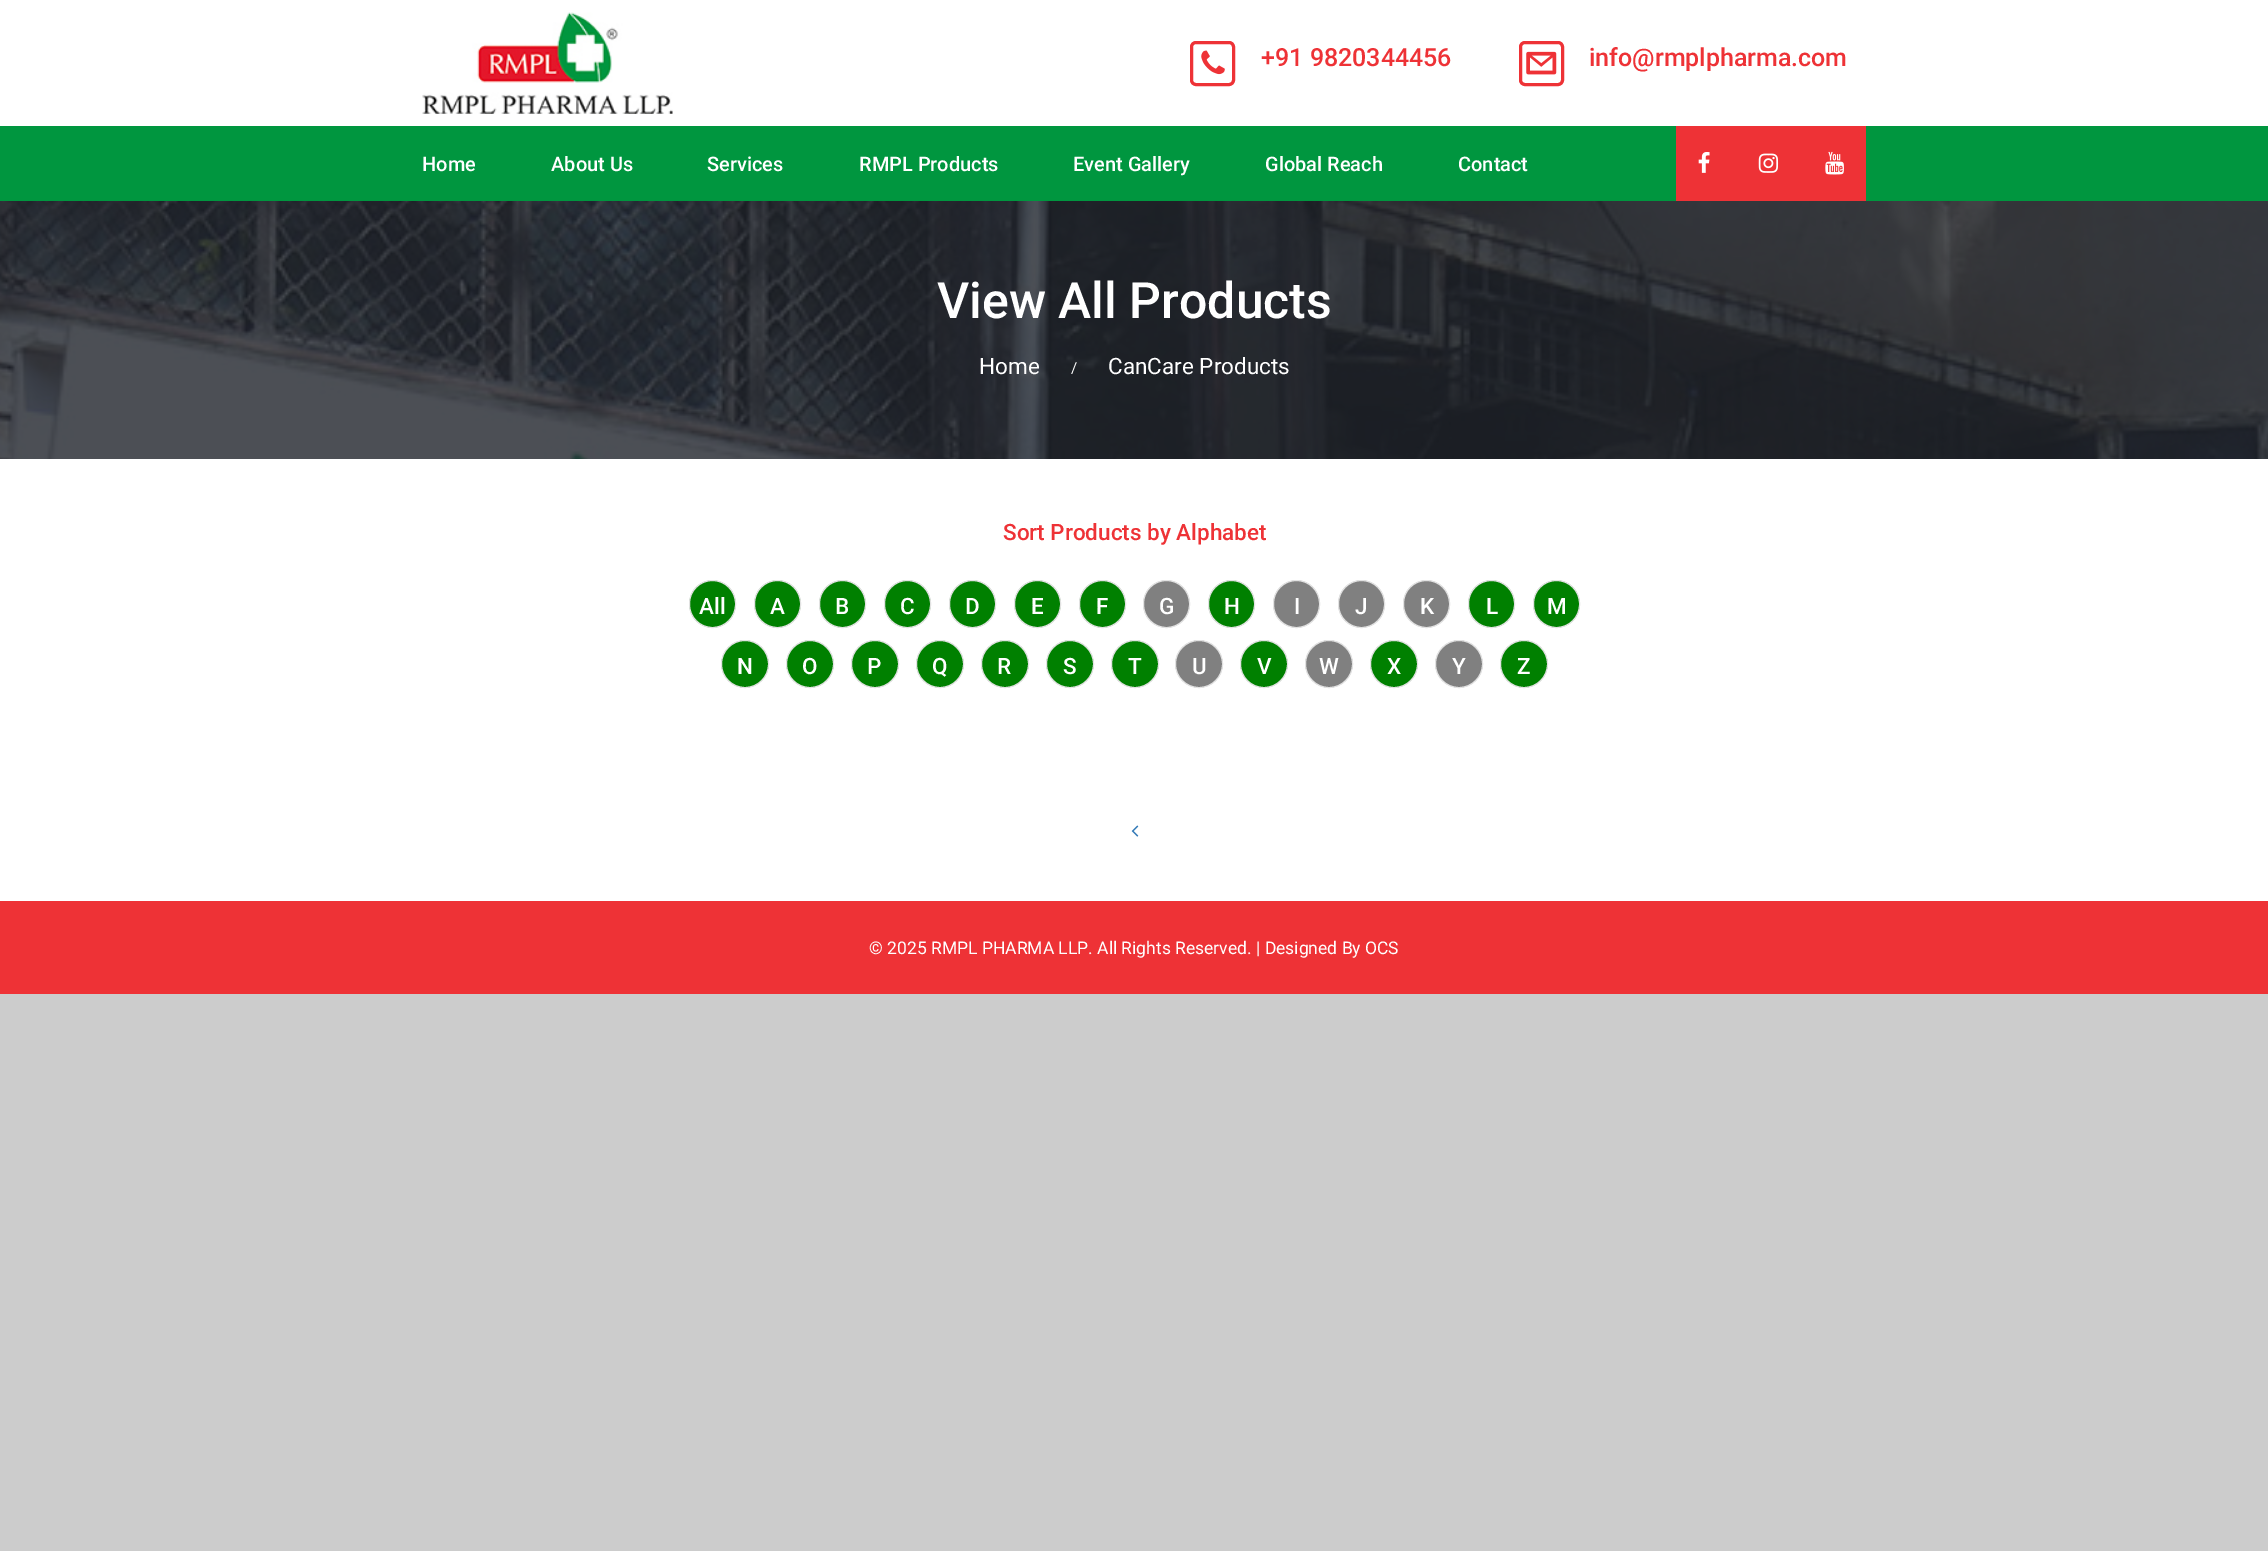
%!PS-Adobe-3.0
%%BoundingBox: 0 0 2268 1551
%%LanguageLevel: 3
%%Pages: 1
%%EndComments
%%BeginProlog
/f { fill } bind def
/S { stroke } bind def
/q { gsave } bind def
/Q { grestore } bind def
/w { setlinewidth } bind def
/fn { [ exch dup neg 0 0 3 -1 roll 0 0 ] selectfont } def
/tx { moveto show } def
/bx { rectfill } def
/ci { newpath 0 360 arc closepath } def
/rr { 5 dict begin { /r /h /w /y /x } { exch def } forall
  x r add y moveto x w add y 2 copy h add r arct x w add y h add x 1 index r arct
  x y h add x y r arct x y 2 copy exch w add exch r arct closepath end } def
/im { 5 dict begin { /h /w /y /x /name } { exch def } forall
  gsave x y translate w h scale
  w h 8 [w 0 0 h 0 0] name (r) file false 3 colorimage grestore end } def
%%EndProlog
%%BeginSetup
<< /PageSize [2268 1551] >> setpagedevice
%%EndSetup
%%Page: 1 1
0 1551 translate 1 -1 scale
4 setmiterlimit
0.8 setgray
0 0 2268 1551 bx
1 setgray
0 0 2268 126 bx
(image0.raw) 422 12 251 102 im
0.933 0.196 0.212 setrgbcolor
3 w
1191.5 42.5 42 42 4.5 rr S
(image1.raw) 1201 50 24 25 im
/Roboto-Medium 25 fn
(+91 9820344456) 1261 66 tx
1520.5 42.5 42 42 4.5 rr S
(image2.raw) 1526 51 31 24 im
(info@rmplpharma.com) 1589 66 tx
0 0.588 0.247 setrgbcolor
0 126 2268 75 bx
/Roboto-Medium 20 fn
1 setgray
(Home) 422 171 tx
(About Us) 551 171 tx
(Services) 707 171 tx
(RMPL Products) 859 171 tx
(Event Gallery) 1073 171 tx
(Global Reach) 1265 171 tx
(Contact) 1458 171 tx
0.933 0.196 0.212 setrgbcolor
1676 126 190 75 bx
(image3.raw) 1698 152 12 21 im
(image4.raw) 1758 153 21 20 im
(image5.raw) 1825 151 19 24 im
(image6.raw) 0 201 2268 258 im
/Roboto-Medium 50 fn
1 setgray
(View All Products) 937 318 tx
/Roboto-Regular 22.5 fn
(Home) 979 374 tx
/Roboto-Regular 15 fn
(/) 1071 373 tx
/Roboto-Regular 22.5 fn
(CanCare Products) 1108 374 tx
0 459 2268 442 bx
/Roboto-Medium 22.5 fn
0.933 0.196 0.212 setrgbcolor
(Sort Products by Alphabet) 1003 540 tx
0 0.502 0 setrgbcolor
689.5 580.5 46 47 23 rr q f Q
0.886 setgray
1 w
S
1 setgray
(All) 699 614 tx
0 0.502 0 setrgbcolor
754.5 580.5 46 47 23 rr q f Q
0.886 setgray
S
1 setgray
(A) 770 614 tx
0 0.502 0 setrgbcolor
819.5 580.5 46 47 23 rr q f Q
0.886 setgray
S
1 setgray
(B) 835 614 tx
0 0.502 0 setrgbcolor
884.5 580.5 46 47 23 rr q f Q
0.886 setgray
S
1 setgray
(C) 900 614 tx
0 0.502 0 setrgbcolor
949.5 580.5 46 47 23 rr q f Q
0.886 setgray
S
1 setgray
(D) 965 614 tx
0 0.502 0 setrgbcolor
1014.5 580.5 46 47 23 rr q f Q
0.886 setgray
S
1 setgray
(E) 1031 614 tx
0 0.502 0 setrgbcolor
1079.5 580.5 46 47 23 rr q f Q
0.886 setgray
S
1 setgray
(F) 1096 614 tx
0.502 setgray
1143.5 580.5 46 47 23 rr q f Q
0.886 setgray
S
1 setgray
(G) 1159 614 tx
0 0.502 0 setrgbcolor
1208.5 580.5 46 47 23 rr q f Q
0.886 setgray
S
1 setgray
(H) 1224 614 tx
0.502 setgray
1273.5 580.5 46 47 23 rr q f Q
0.886 setgray
S
1 setgray
(I) 1294 614 tx
0.502 setgray
1338.5 580.5 46 47 23 rr q f Q
0.886 setgray
S
1 setgray
(J) 1355 614 tx
0.502 setgray
1403.5 580.5 46 47 23 rr q f Q
0.886 setgray
S
1 setgray
(K) 1420 614 tx
0 0.502 0 setrgbcolor
1468.5 580.5 46 47 23 rr q f Q
0.886 setgray
S
1 setgray
(L) 1486 614 tx
0 0.502 0 setrgbcolor
1533.5 580.5 46 47 23 rr q f Q
0.886 setgray
S
1 setgray
(M) 1547 614 tx
0 0.502 0 setrgbcolor
745 664 23.5 ci q f Q
0.886 setgray
S
1 setgray
(N) 737 674 tx
0 0.502 0 setrgbcolor
810 664 23.5 ci q f Q
0.886 setgray
S
1 setgray
(O) 802 674 tx
0 0.502 0 setrgbcolor
875 664 23.5 ci q f Q
0.886 setgray
S
1 setgray
(P) 867 674 tx
0 0.502 0 setrgbcolor
940 664 23.5 ci q f Q
0.886 setgray
S
1 setgray
(Q) 932 674 tx
0 0.502 0 setrgbcolor
1005 664 23.5 ci q f Q
0.886 setgray
S
1 setgray
(R) 997 674 tx
0 0.502 0 setrgbcolor
1070 664 23.5 ci q f Q
0.886 setgray
S
1 setgray
(S) 1063 674 tx
0 0.502 0 setrgbcolor
1135 664 23.5 ci q f Q
0.886 setgray
S
1 setgray
(T) 1128 674 tx
0.502 setgray
1199 664 23.5 ci q f Q
0.886 setgray
S
1 setgray
(U) 1192 674 tx
0 0.502 0 setrgbcolor
1264 664 23.5 ci q f Q
0.886 setgray
S
1 setgray
(V) 1257 674 tx
0.502 setgray
1329 664 23.5 ci q f Q
0.886 setgray
S
1 setgray
(W) 1319 674 tx
0 0.502 0 setrgbcolor
1394 664 23.5 ci q f Q
0.886 setgray
S
1 setgray
(X) 1387 674 tx
0.502 setgray
1459 664 23.5 ci q f Q
0.886 setgray
S
1 setgray
(Y) 1452 674 tx
0 0.502 0 setrgbcolor
1524 664 23.5 ci q f Q
0.886 setgray
S
1 setgray
(Z) 1517 674 tx
(image7.raw) 1131 825 8 12 im
0.933 0.196 0.212 setrgbcolor
0 901 2268 93 bx
/Roboto-Regular 17.5 fn
1 setgray
(© 2025 RMPL PHARMA LLP. All Rights Reserved. | Designed By OCS) 869 954 tx
showpage
%%EOF
